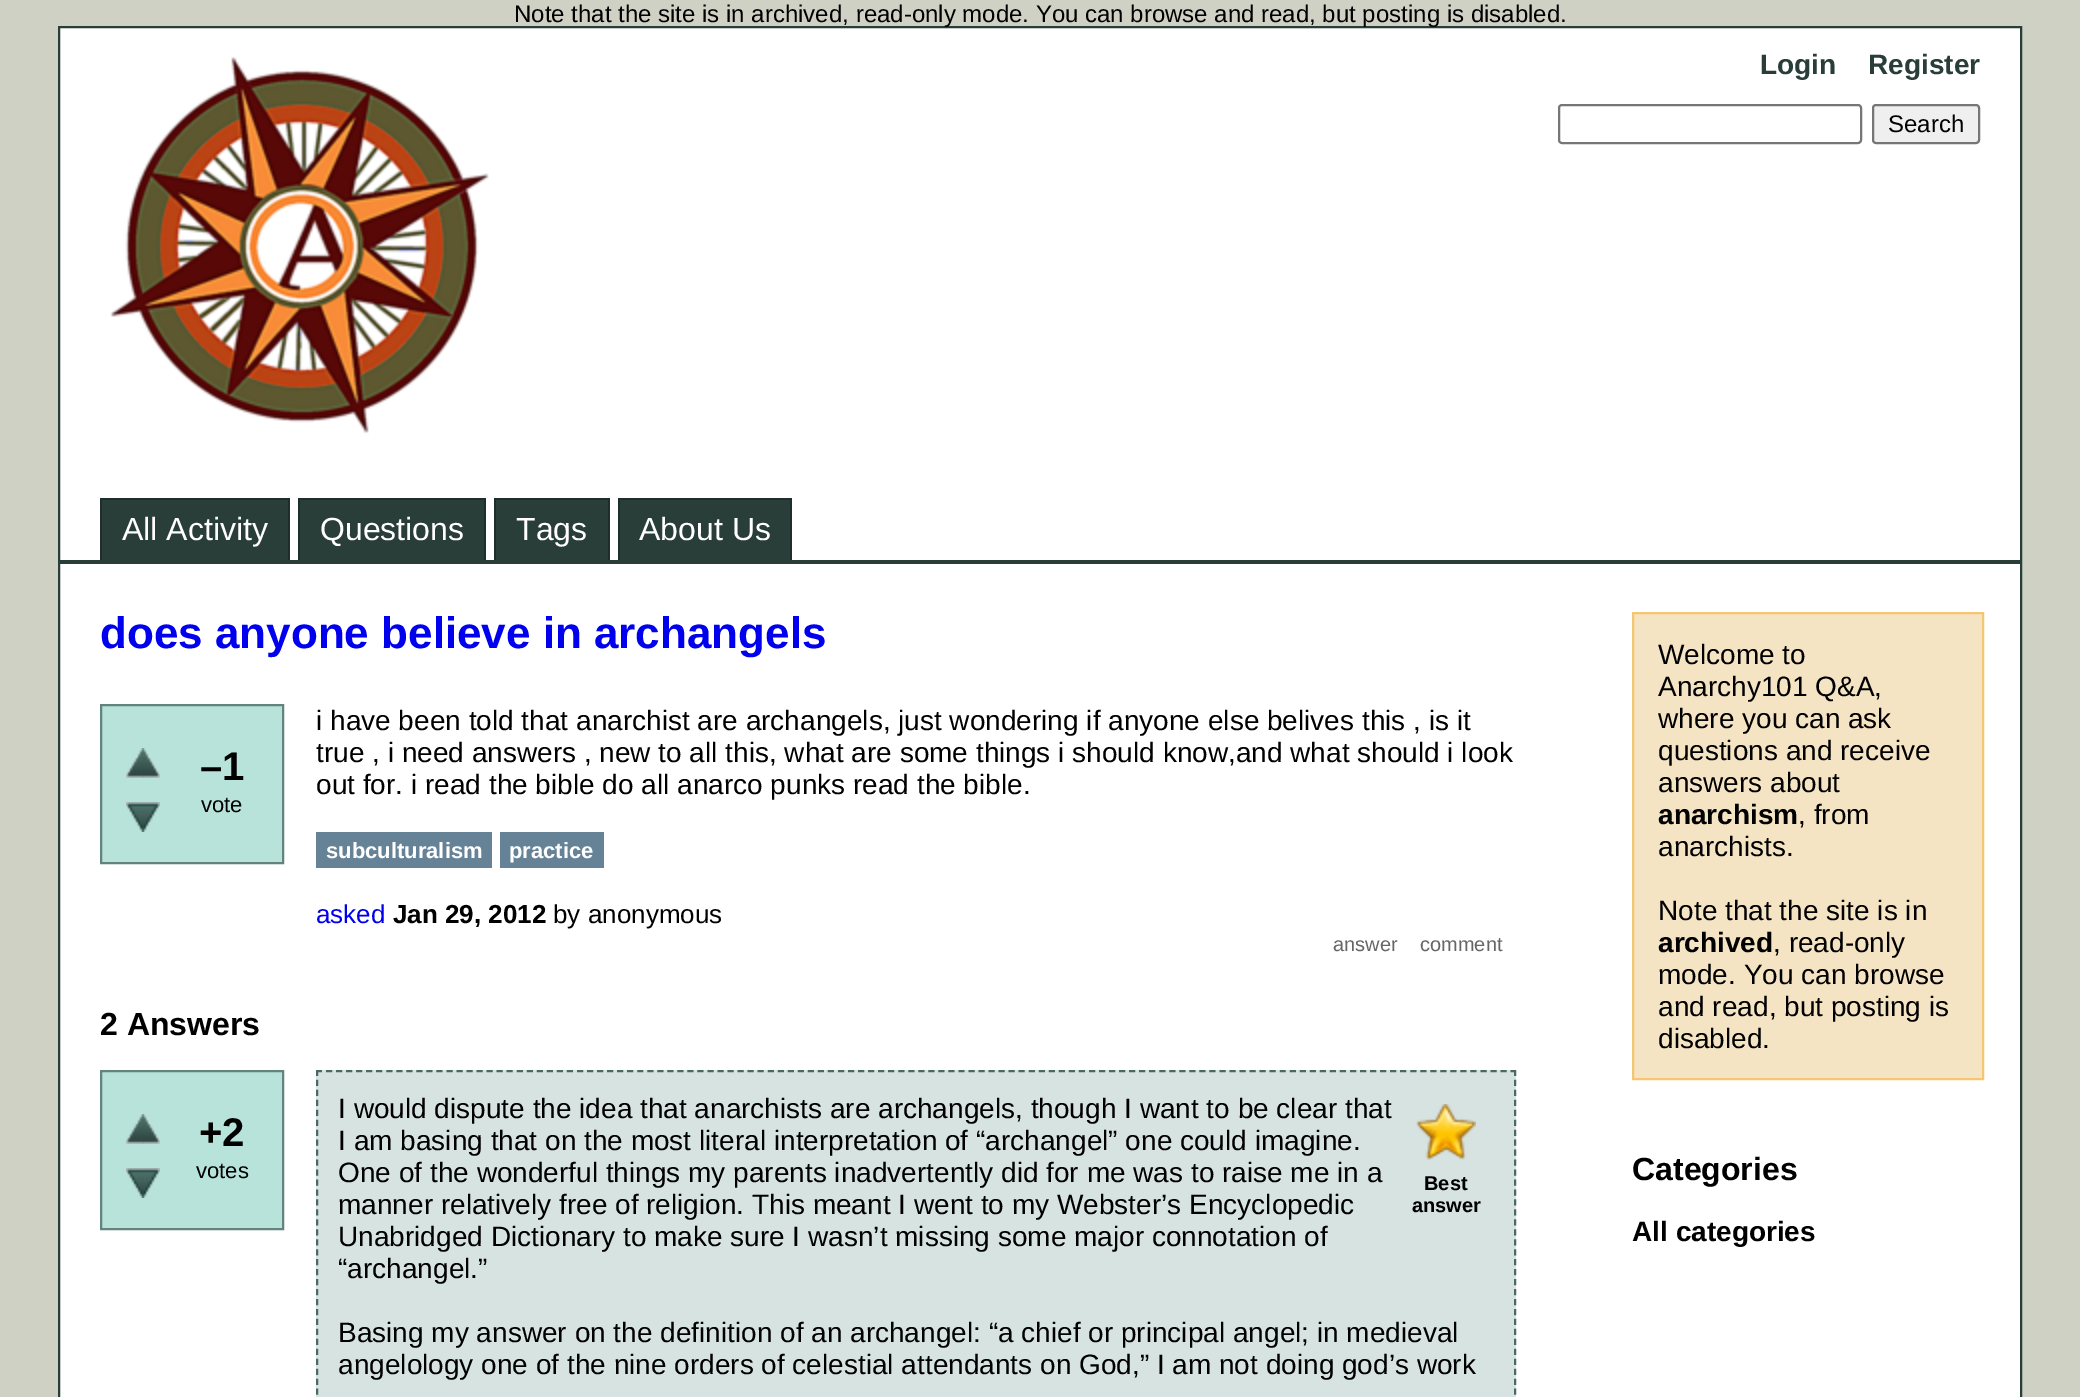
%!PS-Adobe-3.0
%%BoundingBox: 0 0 2080 1397
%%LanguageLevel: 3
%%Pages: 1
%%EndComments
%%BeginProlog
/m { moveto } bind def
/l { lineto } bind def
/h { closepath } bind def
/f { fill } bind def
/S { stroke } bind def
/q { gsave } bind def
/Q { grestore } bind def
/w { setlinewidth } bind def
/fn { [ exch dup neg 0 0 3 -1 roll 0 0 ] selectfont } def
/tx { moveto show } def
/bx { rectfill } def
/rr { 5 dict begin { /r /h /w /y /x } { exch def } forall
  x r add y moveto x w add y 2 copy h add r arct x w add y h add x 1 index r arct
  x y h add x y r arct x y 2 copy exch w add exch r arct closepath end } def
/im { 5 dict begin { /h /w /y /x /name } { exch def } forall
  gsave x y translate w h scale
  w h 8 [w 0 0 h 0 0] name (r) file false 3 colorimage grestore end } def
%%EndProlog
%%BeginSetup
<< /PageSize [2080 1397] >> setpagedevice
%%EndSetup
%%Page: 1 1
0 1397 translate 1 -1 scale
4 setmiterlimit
0.812 0.82 0.769 setrgbcolor
0 0 2080 1397 bx
1 setgray
59 27 m 2021 27 l 2021 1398 l 59 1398 l h q f Q
0.161 0.239 0.224 setrgbcolor
2 w
S
/LiberationSans-Regular 24 fn
0 setgray
(Note that the site is in archived, read-only mode. You can browse and read, but posting is disabled.) 514 22 tx
0.161 0.239 0.224 setrgbcolor
60 560 1960 4 bx
(image0.raw) 110 57 379 377 im
/LiberationSans-Bold 28 fn
(Login) 1760 74 tx
(Register) 1868 74 tx
0.463 setgray
1559 105 302 38 3 rr S
0.937 setgray
1873 105 106 38 3 rr q f Q
0.463 setgray
S
/LiberationSans-Regular 24 fn
0 setgray
(Search) 1888 132 tx
0.122 0.18 0.169 setrgbcolor
100 498 190 2 bx
288 498 2 62 bx
100 498 2 62 bx
0.161 0.239 0.224 setrgbcolor
102 500 186 60 bx
/LiberationSans-Regular 32 fn
1 setgray
(All Activity) 122 540 tx
0.122 0.18 0.169 setrgbcolor
298 498 188 2 bx
484 498 2 62 bx
298 498 2 62 bx
0.161 0.239 0.224 setrgbcolor
300 500 184 60 bx
1 setgray
(Questions) 320 540 tx
0.122 0.18 0.169 setrgbcolor
494 498 116 2 bx
608 498 2 62 bx
494 498 2 62 bx
0.161 0.239 0.224 setrgbcolor
496 500 112 60 bx
1 setgray
(Tags) 516 540 tx
0.122 0.18 0.169 setrgbcolor
618 498 174 2 bx
790 498 2 62 bx
618 498 2 62 bx
0.161 0.239 0.224 setrgbcolor
620 500 170 60 bx
1 setgray
(About Us) 639 540 tx
/LiberationSans-Bold 44 fn
0 0 0.933 setrgbcolor
(does anyone believe in archangels) 100 648 tx
0.718 0.89 0.855 setrgbcolor
101 705 m 283 705 l 283 863 l 101 863 l h q f Q
0.384 0.518 0.49 setrgbcolor
S
(image1.raw) 126 748 34 30 im
(image2.raw) 126 802 34 30 im
/LiberationSans-Bold 40 fn
0 setgray
(–1) 200 780 tx
/LiberationSans-Regular 22 fn
(vote) 201 812 tx
/LiberationSans-Regular 28 fn
(i have been told that anarchist are archangels, just wondering if anyone else belives this , is it) 316 730 tx
(true , i need answers , new to all this, what are some things i should know,and what should i look) 316 762 tx
(out for. i read the bible do all anarco punks read the bible.) 316 794 tx
0.396 0.51 0.588 setrgbcolor
316 832 176 36 bx
/LiberationSans-Bold 22 fn
1 setgray
(subculturalism) 326 858 tx
0.396 0.51 0.588 setrgbcolor
500 832 104 36 bx
1 setgray
(practice) 509 858 tx
/LiberationSans-Regular 26 fn
0 0 0.933 setrgbcolor
(asked) 316 923 tx
/LiberationSans-Bold 26 fn
0 setgray
(Jan 29, 2012) 393 923 tx
/LiberationSans-Regular 26 fn
(by anonymous) 553 923 tx
/LiberationSans-Regular 20 fn
0.4 setgray
(answer) 1333 951 tx
(comment) 1420 951 tx
/LiberationSans-Bold 32 fn
0 setgray
(2 Answers) 100 1035 tx
0.718 0.89 0.855 setrgbcolor
101 1071 m 283 1071 l 283 1229 l 101 1229 l h q f Q
0.384 0.518 0.49 setrgbcolor
S
(image1.raw) 126 1114 34 30 im
(image2.raw) 126 1168 34 30 im
/LiberationSans-Bold 40 fn
0 setgray
(+2) 199 1146 tx
/LiberationSans-Regular 22 fn
(votes) 196 1178 tx
0.843 0.89 0.882 setrgbcolor
316 1070 1200 327 bx
0.282 0.416 0.388 setrgbcolor
[6 4.04] 0 setdash
316 1071 m 1516 1071 l S
[6 3.96] 0 setdash
1515 1070 m 1515 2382 l S
317 1070 m 317 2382 l S
/LiberationSans-Regular 28 fn
0 setgray
(I would dispute the idea that anarchists are archangels, though I want to be clear that) 338 1118 tx
(I am basing that on the most literal interpretation of “archangel” one could imagine.) 338 1150 tx
(One of the wonderful things my parents inadvertently did for me was to raise me in a) 338 1182 tx
(manner relatively free of religion. This meant I went to my Webster’s Encyclopedic) 338 1214 tx
(Unabridged Dictionary to make sure I wasn’t missing some major connotation of) 338 1246 tx
(“archangel.”) 338 1278 tx
(Basing my answer on the definition of an archangel: “a chief or principal angel; in medieval) 338 1342 tx
(angelology one of the nine orders of celestial attendants on God,” I am not doing god’s work) 338 1374 tx
(image3.raw) 1416 1104 60 56 im
/LiberationSans-Bold 20 fn
(Best) 1424 1190 tx
(answer) 1412 1212 tx
0.961 0.894 0.765 setrgbcolor
1633 613 m 1983 613 l 1983 1079 l 1633 1079 l h q f Q
0.953 0.78 0.447 setrgbcolor
[] 0 setdash
S
/LiberationSans-Regular 28 fn
0 setgray
(Welcome to) 1658 664 tx
(Anarchy101 Q&A,) 1658 696 tx
(where you can ask) 1658 728 tx
(questions and receive) 1658 760 tx
(answers about) 1658 792 tx
/LiberationSans-Bold 28 fn
(anarchism) 1658 824 tx
/LiberationSans-Regular 28 fn
(, from) 1798 824 tx
(anarchists.) 1658 856 tx
(Note that the site is in) 1658 920 tx
/LiberationSans-Bold 28 fn
(archived) 1658 952 tx
/LiberationSans-Regular 28 fn
(, read-only) 1773 952 tx
(mode. You can browse) 1658 984 tx
(and read, but posting is) 1658 1016 tx
(disabled.) 1658 1048 tx
/LiberationSans-Bold 32 fn
(Categories) 1632 1180 tx
/LiberationSans-Bold 28 fn
(All categories) 1632 1241 tx
showpage
%%EOF
